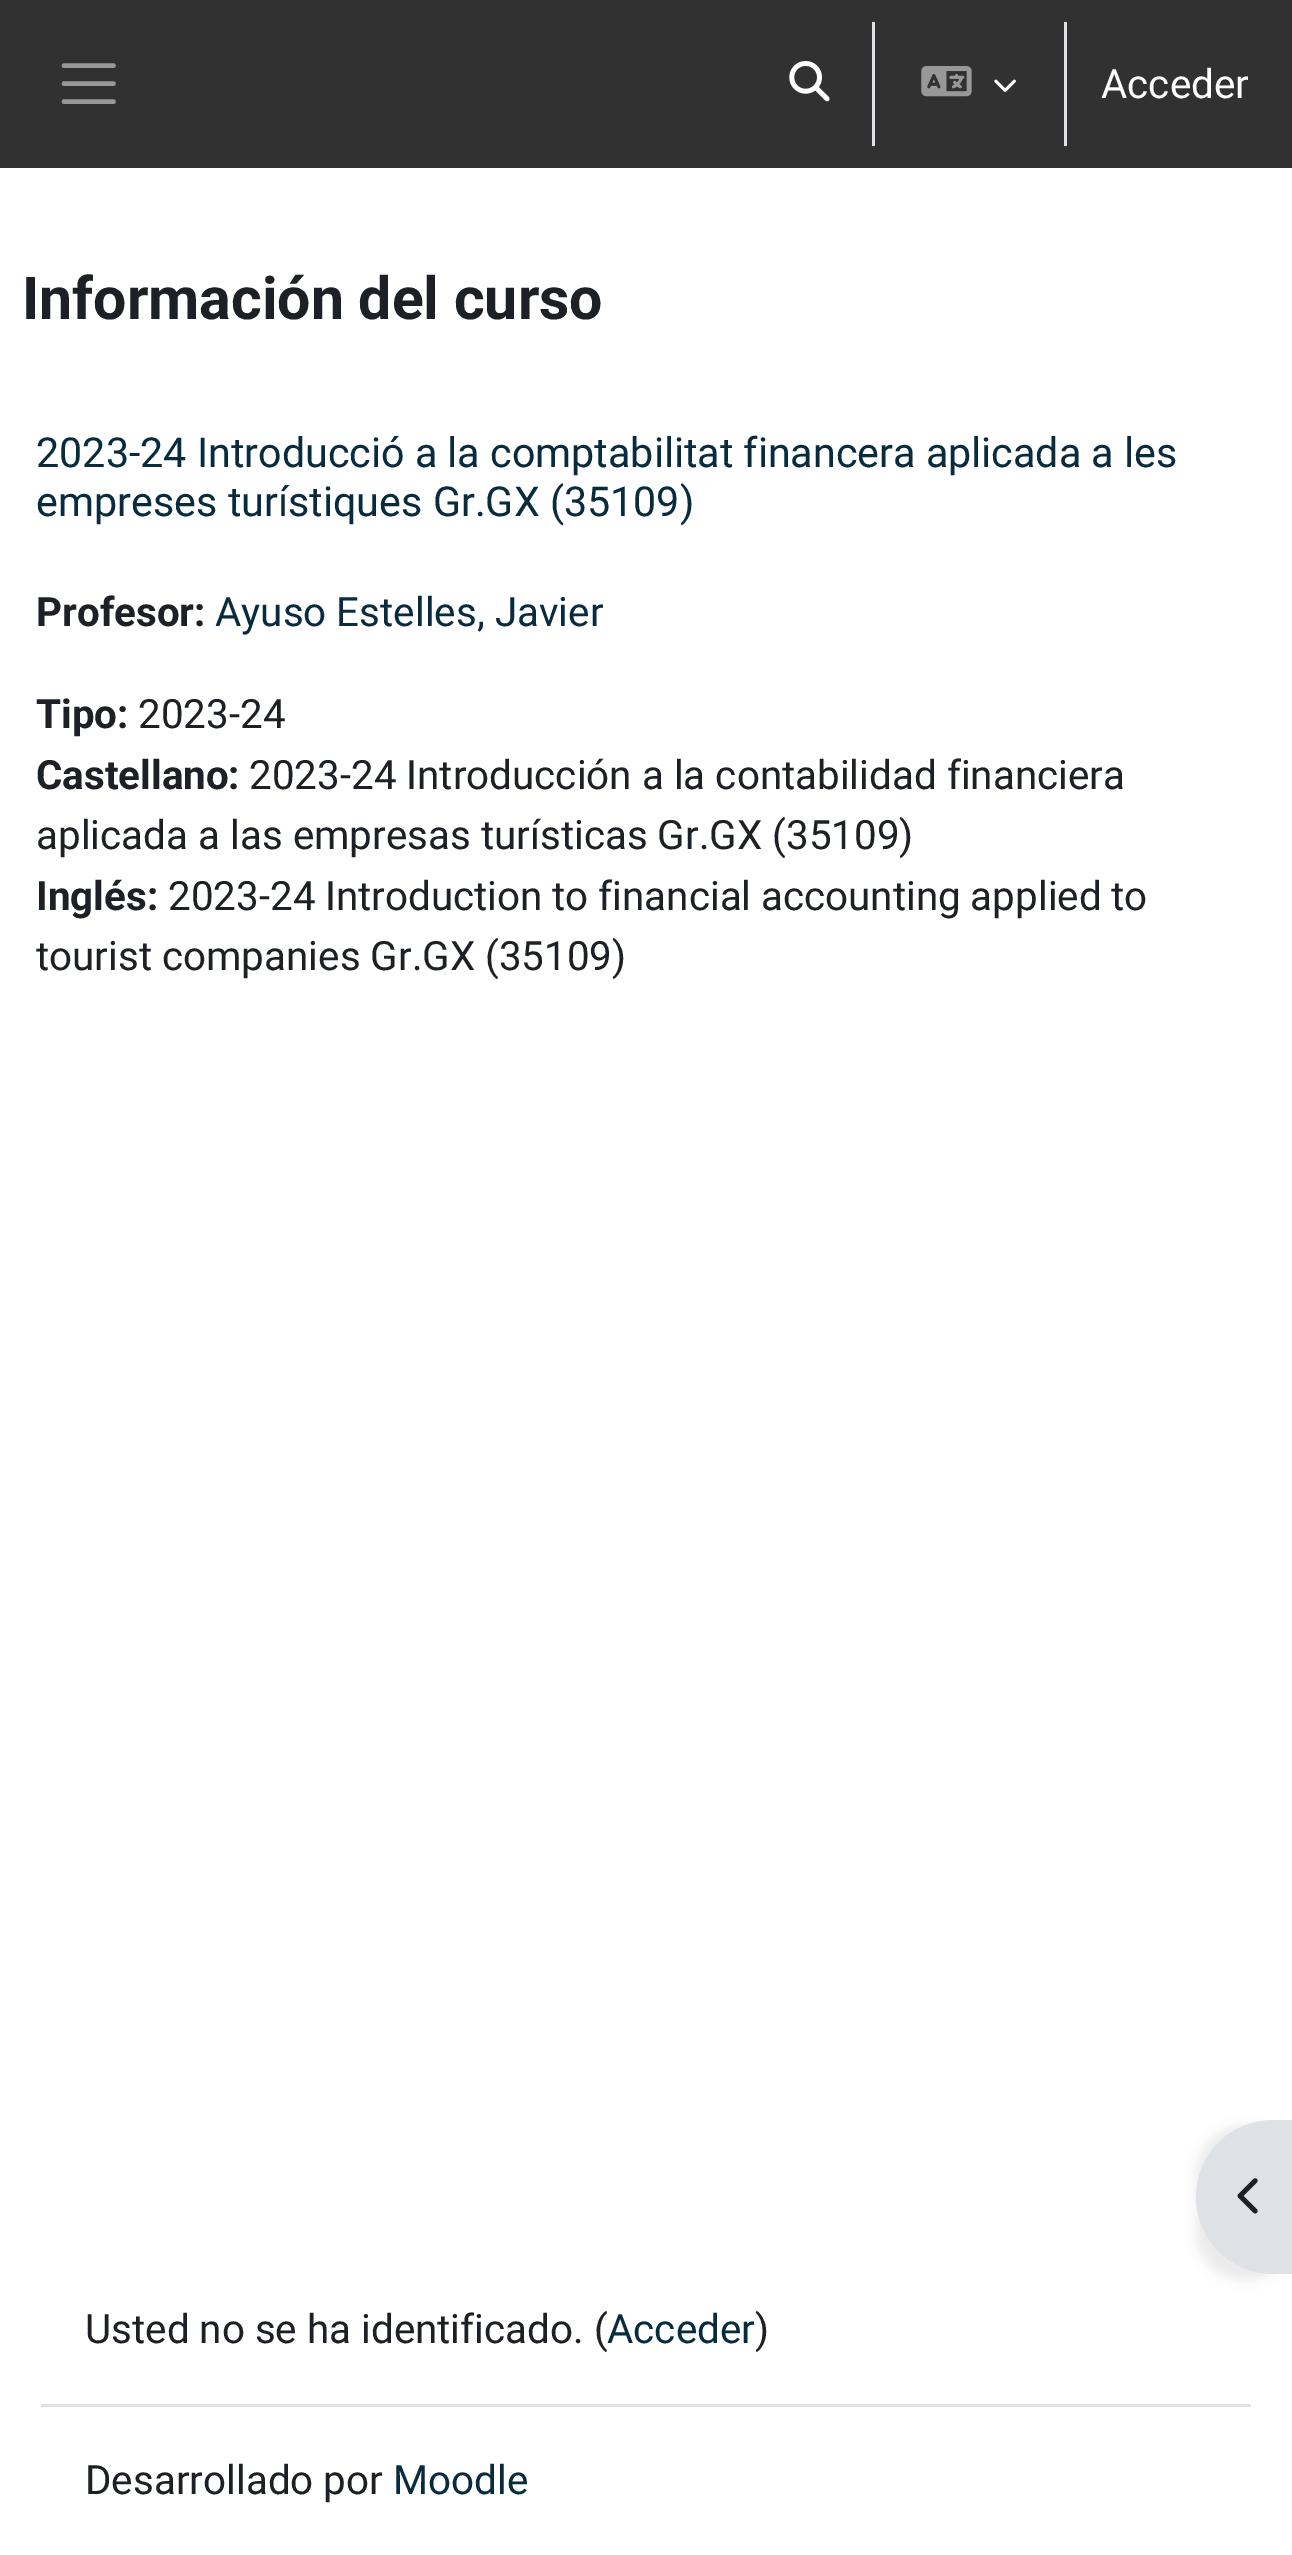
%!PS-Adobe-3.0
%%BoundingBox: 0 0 1292 2555
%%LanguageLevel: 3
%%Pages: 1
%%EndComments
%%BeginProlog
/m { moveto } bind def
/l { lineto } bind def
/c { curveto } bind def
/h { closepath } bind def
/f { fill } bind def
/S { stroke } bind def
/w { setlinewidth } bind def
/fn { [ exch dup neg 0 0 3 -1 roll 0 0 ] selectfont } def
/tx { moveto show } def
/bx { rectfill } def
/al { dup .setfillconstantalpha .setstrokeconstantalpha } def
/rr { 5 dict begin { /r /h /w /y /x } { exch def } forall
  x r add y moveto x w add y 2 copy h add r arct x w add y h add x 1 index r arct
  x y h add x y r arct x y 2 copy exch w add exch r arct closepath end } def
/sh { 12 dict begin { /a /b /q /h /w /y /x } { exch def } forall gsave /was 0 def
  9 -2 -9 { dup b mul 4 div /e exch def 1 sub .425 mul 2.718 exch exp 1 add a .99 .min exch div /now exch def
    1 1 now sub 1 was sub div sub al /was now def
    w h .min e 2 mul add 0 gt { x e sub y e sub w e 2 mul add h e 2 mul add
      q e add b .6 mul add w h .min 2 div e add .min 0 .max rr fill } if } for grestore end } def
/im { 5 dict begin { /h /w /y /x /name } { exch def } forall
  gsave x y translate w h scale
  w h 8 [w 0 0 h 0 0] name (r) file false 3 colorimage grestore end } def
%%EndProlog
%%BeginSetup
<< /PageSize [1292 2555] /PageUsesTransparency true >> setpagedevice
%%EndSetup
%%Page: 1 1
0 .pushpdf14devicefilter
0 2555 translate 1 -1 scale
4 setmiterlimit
1 setgray
0 0 1292 2555 bx
0.192 setgray
0 0 1292 168 bx
0.596 setgray
4.5 w
1 setlinecap
64 65.5 m 113.5 65.5 l 64 83.5 m 113.5 83.5 l 64 101.5 m 113.5 101.5 l S
(image0.raw) 789 60 41 42 im
0.871 0.886 0.902 setrgbcolor
872 22 3 124 bx
(image1.raw) 921 66 51 31 im
(image2.raw) 994 79 22 13 im
1064 22 3 124 bx
/Roboto-Regular 40.35 fn
1 setgray
(Acceder) 1101 98 tx
/Roboto-Bold 59 fn
0.114 0.129 0.145 setrgbcolor
(Información del curso) 22 319 tx
/Roboto-Regular 41.25 fn
0.031 0.169 0.243 setrgbcolor
(2023-24 Introducció a la comptabilitat financera aplicada a les) 36 467 tx
(empreses turístiques Gr.GX \(35109\)) 36 516 tx
/Roboto-Bold 40.35 fn
0.114 0.129 0.145 setrgbcolor
(Profesor:) 36 626 tx
/Roboto-Regular 40.35 fn
0.031 0.169 0.243 setrgbcolor
(Ayuso Estelles, Javier) 215 626 tx
/Roboto-Bold 40.35 fn
0.114 0.129 0.145 setrgbcolor
(Tipo:) 36 728 tx
/Roboto-Regular 40.35 fn
(2023-24) 138 728 tx
/Roboto-Bold 40.35 fn
(Castellano:) 36 789 tx
/Roboto-Regular 40.35 fn
(2023-24 Introducción a la contabilidad financiera) 249 789 tx
(aplicada a las empresas turísticas Gr.GX \(35109\)) 36 849 tx
/Roboto-Bold 40.35 fn
(Inglés:) 36 910 tx
/Roboto-Regular 40.35 fn
168 910 m -0.25 0 32 (2023-24 Introduction to financial accounting applied to) widthshow
(tourist companies Gr.GX \(35109\)) 36 970 tx
0 setgray
1196 2126 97 154 77 5.5 0.07 sh
0.871 0.886 0.902 setrgbcolor
1273 2120 m 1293 2120 l 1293 2274 l 1273 2274 l 1230.5 2274 1196 2239.5 1196 2197 c 1196 2154.5 1230.5 2120 1273 2120 c h f
(image3.raw) 1237 2178 21 36 im
41 2404 1210 3 bx
0.114 0.129 0.145 setrgbcolor
(Usted no se ha identificado. \() 85 2343 tx
0.031 0.169 0.243 setrgbcolor
(Acceder) 607 2343 tx
0.114 0.129 0.145 setrgbcolor
(\)) 755 2343 tx
(Desarrollado por) 85 2494 tx
0.031 0.169 0.243 setrgbcolor
(Moodle) 393 2494 tx
.poppdf14devicefilter showpage
%%EOF
